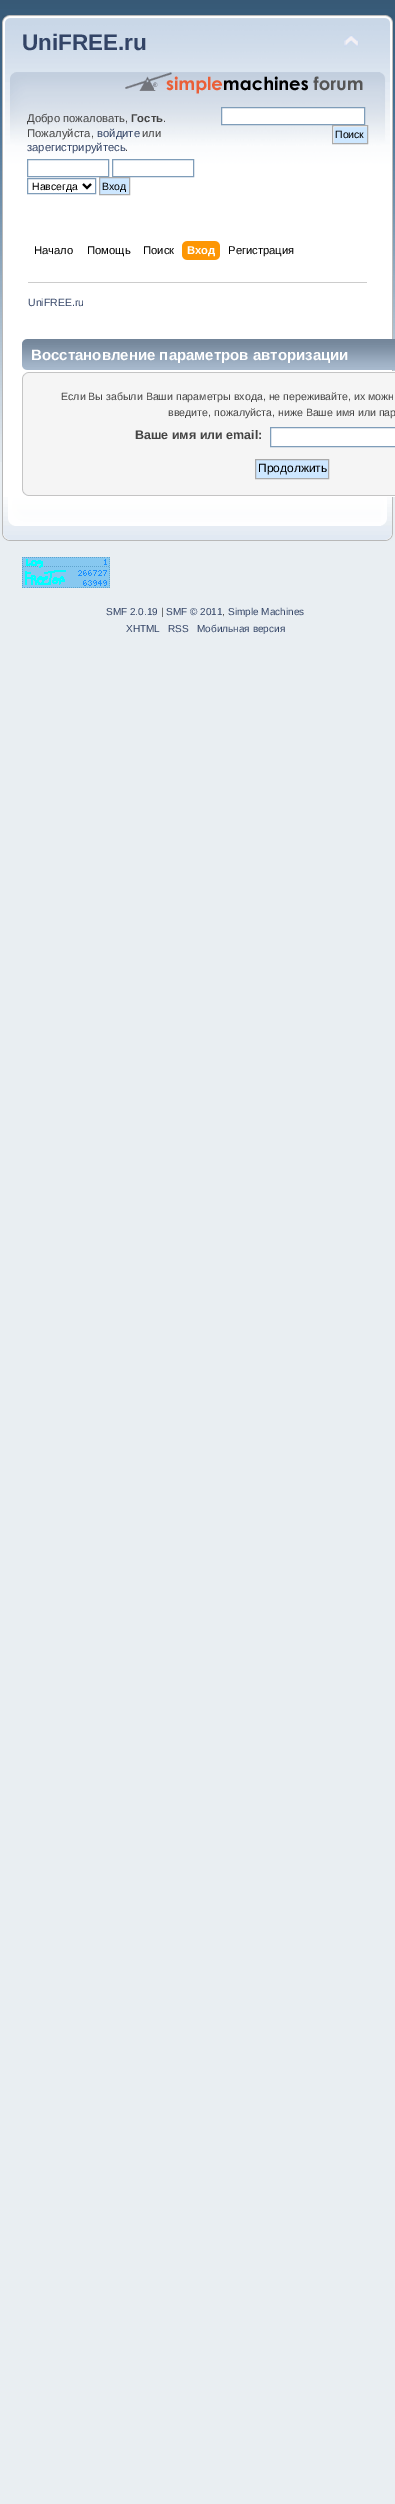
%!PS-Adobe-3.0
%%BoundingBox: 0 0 395 2504
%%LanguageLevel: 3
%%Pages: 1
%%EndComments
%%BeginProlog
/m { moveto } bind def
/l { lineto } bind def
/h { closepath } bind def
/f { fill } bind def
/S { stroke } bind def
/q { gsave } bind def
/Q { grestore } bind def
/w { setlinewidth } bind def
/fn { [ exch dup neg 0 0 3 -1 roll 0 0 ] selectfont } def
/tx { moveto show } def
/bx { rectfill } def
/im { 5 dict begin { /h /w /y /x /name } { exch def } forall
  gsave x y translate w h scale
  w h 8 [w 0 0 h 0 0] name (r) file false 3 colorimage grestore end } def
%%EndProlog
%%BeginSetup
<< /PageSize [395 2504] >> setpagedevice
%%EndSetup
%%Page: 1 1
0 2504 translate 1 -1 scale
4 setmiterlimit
0.914 0.933 0.949 setrgbcolor
0 0 395 2504 bx
(image0.raw) 0 0 395 462 im
(image1.raw) 2 15 378 261 im
(image2.raw) 380 15 13 261 im
/LiberationSans-Bold 22.5 fn
0.2 0.267 0.4 setrgbcolor
(UniFREE.ru) 22 50 tx
(image3.raw) 344 35 15 12 im
(image4.raw) 125 72 238 22 im
/LiberationSans-Regular 11.25 fn
0.267 setgray
(Добро пожаловать,) 27 122 tx
/LiberationSans-Bold 11.25 fn
(Гость) 131 122 tx
/LiberationSans-Regular 11.25 fn
(.) 163 122 tx
(Пожалуйста,) 27 137 tx
0.2 0.267 0.4 setrgbcolor
(войдите) 97 137 tx
0.267 setgray
(или) 142 137 tx
0.2 0.267 0.4 setrgbcolor
(зарегистрируйтесь) 27 151 tx
0.267 setgray
(.) 125 151 tx
0.498 0.616 0.725 setrgbcolor
27.5 159.5 81 17 rectstroke
112.5 159.5 81 17 rectstroke
27.5 178.5 68 15 rectstroke
0 setgray
2 w
83 184 m 87 188 l 91 184 l S
/LiberationSans-Regular 10.5 fn
(Навсегда) 32 190 tx
0.804 0.906 1 setrgbcolor
99.5 177.5 m 129.5 177.5 l 129.5 194.5 l 99.5 194.5 l h q f Q
0.667 setgray
1 w
S
0 setgray
(Вход) 102 190 tx
1 setgray
221.5 107.5 m 364.5 107.5 l 364.5 124.5 l 221.5 124.5 l h q f Q
0.498 0.616 0.725 setrgbcolor
S
(image5.raw) 333 126 34 17 im
0.667 setgray
332.5 125.5 35 18 rectstroke
0 setgray
(Поиск) 335 138 tx
/LiberationSans-Regular 11.25 fn
(Начало) 34 254 tx
(Помощь) 87 254 tx
(Поиск) 143 254 tx
(image6.raw) 187 241 33 19 im
(image7.raw) 182 241 5 19 im
/LiberationSans-Bold 11.25 fn
1 setgray
(Вход) 187 254 tx
/LiberationSans-Regular 11.25 fn
0 setgray
(Регистрация) 228 254 tx
1 setgray
3 276 389 221 bx
0.718 setgray
2 276 1 221 bx
0.729 setgray
392 276 1 95 bx
0.8 setgray
28 282 339 1 bx
/LiberationSans-Regular 10.5 fn
0.2 0.267 0.4 setrgbcolor
(UniFREE.ru) 28 306 tx
(image8.raw) 22 339 373 31 im
/LiberationSans-Bold 15 fn
1 setgray
(Восстановление параметров авторизации) 31 360 tx
(image9.raw) 22 371 373 12 im
0.961 setgray
23 383 372 102 bx
0.773 setgray
22 383 1 102 bx
/LiberationSans-Regular 10.6 fn
0.267 setgray
(Если Вы забыли Ваши параметры входа, не переживайте, их можн) 61 400 tx
(введите, пожалуйста, ниже Ваше имя или пар) 168 416 tx
/LiberationSans-Bold 12.5 fn
(Ваше имя или email:) 135 439 tx
1 setgray
270.5 427.5 m 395.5 427.5 l 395.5 446.5 l 270.5 446.5 l h q f Q
0.498 0.616 0.725 setrgbcolor
S
0.804 0.906 1 setrgbcolor
255.5 459.5 m 328.5 459.5 l 328.5 478.5 l 255.5 478.5 l h q f Q
0.667 setgray
S
/LiberationSans-Regular 12 fn
0 setgray
(Продолжить) 258 472 tx
(image10.raw) 22 485 373 12 im
(image11.raw) 2 497 379 44 im
(image12.raw) 381 497 12 44 im
(image13.raw) 22 557 88 31 im
/LiberationSans-Regular 10 fn
0.2 0.267 0.4 setrgbcolor
(SMF 2.0.19) 106 615 tx
0.267 setgray
(|) 161 615 tx
0.2 0.267 0.4 setrgbcolor
(SMF © 2011) 166 615 tx
0.267 setgray
(,) 222 615 tx
0.2 0.267 0.4 setrgbcolor
(Simple Machines) 228 615 tx
(XHTML) 126 632 tx
(RSS) 168 632 tx
(Мобильная версия) 197 632 tx
showpage
%%EOF
